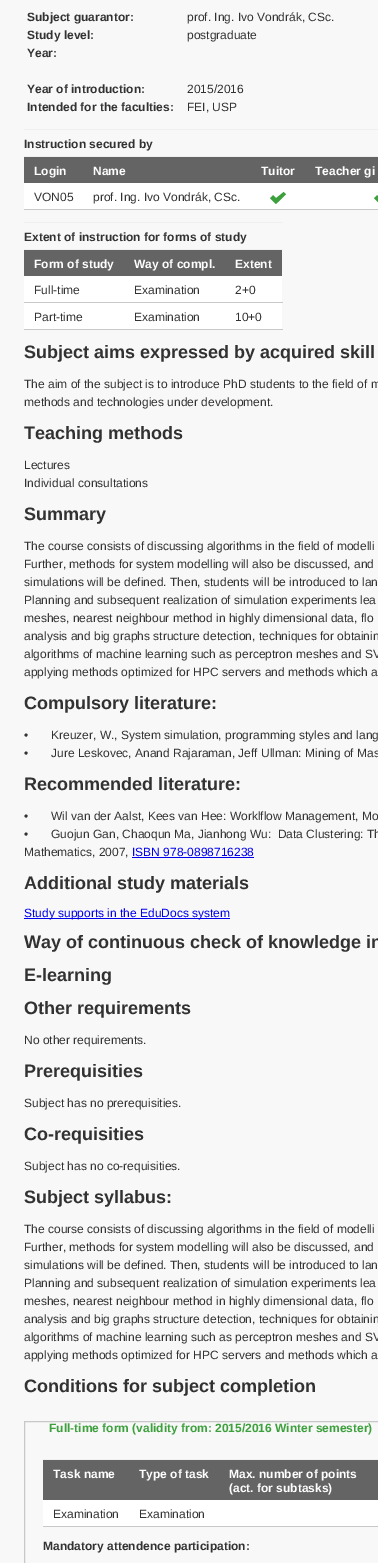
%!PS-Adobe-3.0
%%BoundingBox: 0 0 378 1563
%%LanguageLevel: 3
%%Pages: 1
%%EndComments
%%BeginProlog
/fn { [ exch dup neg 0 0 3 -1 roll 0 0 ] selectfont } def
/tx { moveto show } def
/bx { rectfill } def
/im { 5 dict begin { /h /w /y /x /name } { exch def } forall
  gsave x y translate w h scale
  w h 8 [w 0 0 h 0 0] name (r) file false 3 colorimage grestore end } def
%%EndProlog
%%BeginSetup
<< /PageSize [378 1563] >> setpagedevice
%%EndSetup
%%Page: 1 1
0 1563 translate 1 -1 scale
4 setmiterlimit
0.973 setgray
0 0 378 1563 bx
/LiberationSans-Bold 12 fn
0.196 setgray
(Subject guarantor:) 27 21 tx
/LiberationSans-Regular 12 fn
(prof. Ing. Ivo Vondrák, CSc.) 187 21 tx
/LiberationSans-Bold 12 fn
(Study level:) 27 39 tx
/LiberationSans-Regular 12 fn
(postgraduate) 187 39 tx
/LiberationSans-Bold 12 fn
(Year:) 27 57 tx
(Year of introduction:) 27 93 tx
/LiberationSans-Regular 12 fn
(2015/2016) 187 93 tx
/LiberationSans-Bold 12 fn
(Intended for the faculties:) 27 111 tx
/LiberationSans-Regular 12 fn
(FEI, USP) 187 111 tx
0.941 setgray
24 129 354 1 bx
/LiberationSans-Bold 12 fn
0.196 setgray
(Instruction secured by) 24 148 tx
0.941 setgray
24 156 354 1 bx
0.392 setgray
24 157 354 26 bx
1 setgray
(Login) 34 175 tx
(Name) 93 175 tx
(Tuitor) 261 175 tx
(Teacher gi) 315 175 tx
24 183 354 26 bx
/LiberationSans-Regular 12 fn
0.196 setgray
(VON05) 34 201 tx
(prof. Ing. Ivo Vondrák, CSc.) 93 201 tx
(image0.raw) 270 192 16 12 im
0.784 setgray
24 209 354 1 bx
(image1.raw) 374 195 4 8 im
0.941 setgray
24 222 259 1 bx
/LiberationSans-Bold 12 fn
0.196 setgray
(Extent of instruction for forms of study) 24 241 tx
0.941 setgray
24 249 259 1 bx
0.392 setgray
24 250 258 26 bx
1 setgray
(Form of study) 34 268 tx
(Way of compl.) 134 268 tx
(Extent) 235 268 tx
24 276 258 26 bx
/LiberationSans-Regular 12 fn
0.196 setgray
(Full-time) 34 294 tx
(Examination) 134 294 tx
0.784 setgray
24 302 259 1 bx
0.196 setgray
(2+0) 235 294 tx
1 setgray
24 303 258 26 bx
0.196 setgray
(Part-time) 34 321 tx
(Examination) 134 321 tx
0.784 setgray
24 329 259 1 bx
0.196 setgray
(10+0) 235 321 tx
/LiberationSans-Bold 18 fn
(Subject aims expressed by acquired skill) 24 358 tx
/LiberationSans-Regular 12 fn
(The aim of the subject is to introduce PhD students to the field of m) 24 388 tx
(methods and technologies under development.) 24 406 tx
/LiberationSans-Bold 18 fn
(Teaching methods) 24 439 tx
/LiberationSans-Regular 12 fn
(Lectures) 24 469 tx
(Individual consultations) 24 487 tx
/LiberationSans-Bold 18 fn
(Summary) 24 520 tx
/LiberationSans-Regular 12 fn
(The course consists of discussing algorithms in the field of modelli) 24 550 tx
(Further, methods for system modelling will also be discussed, and) 24 568 tx
(simulations will be defined. Then, students will be introduced to lan) 24 586 tx
(Planning and subsequent realization of simulation experiments lea) 24 604 tx
(meshes, nearest neighbour method in highly dimensional data, flo) 24 622 tx
(analysis and big graphs structure detection, techniques for obtainin) 24 640 tx
(algorithms of machine learning such as perceptron meshes and SV) 24 658 tx
(applying methods optimized for HPC servers and methods which a) 24 676 tx
/LiberationSans-Bold 18 fn
(Compulsory literature:) 24 709 tx
/LiberationSans-Regular 12 fn
(•) 24 739 tx
(Kreuzer, W., System simulation, programming styles and lang) 51 739 tx
(•) 24 757 tx
(Jure Leskovec, Anand Rajaraman, Jeff Ullman: Mining of Mas) 51 757 tx
/LiberationSans-Bold 18 fn
(Recommended literature:) 24 790 tx
/LiberationSans-Regular 12 fn
(•) 24 820 tx
(Wil van der Aalst, Kees van Hee: Worklflow Management, Mo) 51 820 tx
(•) 24 838 tx
(Guojun Gan, Chaoqun Ma, Jianhong Wu:  Data Clustering: Th) 51 838 tx
(Mathematics, 2007,) 24 856 tx
0 0 0.933 setrgbcolor
(ISBN 978-0898716238) 132 856 tx
132 857 122 1 bx
/LiberationSans-Bold 18 fn
0.196 setgray
(Additional study materials) 24 889 tx
0 0 0.933 setrgbcolor
24 918 206 1 bx
/LiberationSans-Regular 12 fn
(Study supports in the EduDocs system) 24 917 tx
/LiberationSans-Bold 18 fn
0.196 setgray
(Way of continuous check of knowledge in) 24 948 tx
(E-learning) 24 981 tx
(Other requirements) 24 1014 tx
/LiberationSans-Regular 12 fn
(No other requirements.) 24 1044 tx
/LiberationSans-Bold 18 fn
(Prerequisities) 24 1077 tx
/LiberationSans-Regular 12 fn
(Subject has no prerequisities.) 24 1107 tx
/LiberationSans-Bold 18 fn
(Co-requisities) 24 1140 tx
/LiberationSans-Regular 12 fn
(Subject has no co-requisities.) 24 1170 tx
/LiberationSans-Bold 18 fn
(Subject syllabus:) 24 1203 tx
/LiberationSans-Regular 12 fn
(The course consists of discussing algorithms in the field of modelli) 24 1233 tx
(Further, methods for system modelling will also be discussed, and) 24 1251 tx
(simulations will be defined. Then, students will be introduced to lan) 24 1269 tx
(Planning and subsequent realization of simulation experiments lea) 24 1287 tx
(meshes, nearest neighbour method in highly dimensional data, flo) 24 1305 tx
(analysis and big graphs structure detection, techniques for obtainin) 24 1323 tx
(algorithms of machine learning such as perceptron meshes and SV) 24 1341 tx
(applying methods optimized for HPC servers and methods which a) 24 1359 tx
/LiberationSans-Bold 18 fn
(Conditions for subject completion) 24 1392 tx
0.784 setgray
24.5 1421.5 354 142 rectstroke
/LiberationSans-Bold 12 fn
0.235 0.627 0.235 setrgbcolor
(Full-time form \(validity from: 2015/2016 Winter semester\)) 49 1432 tx
0.941 setgray
43 1459 335 1 bx
0.392 setgray
43 1460 335 40 bx
1 setgray
(Task name) 53 1478 tx
(Type of task) 139 1478 tx
(Max. number of points) 229 1478 tx
(\(act. for subtasks\)) 229 1492 tx
43 1500 335 26 bx
/LiberationSans-Regular 12 fn
0.196 setgray
(Examination) 53 1518 tx
(Examination) 139 1518 tx
0.784 setgray
43 1526 335 1 bx
/LiberationSans-Bold 12 fn
0.196 setgray
(Mandatory attendence participation:) 43 1550 tx
showpage
%%EOF
